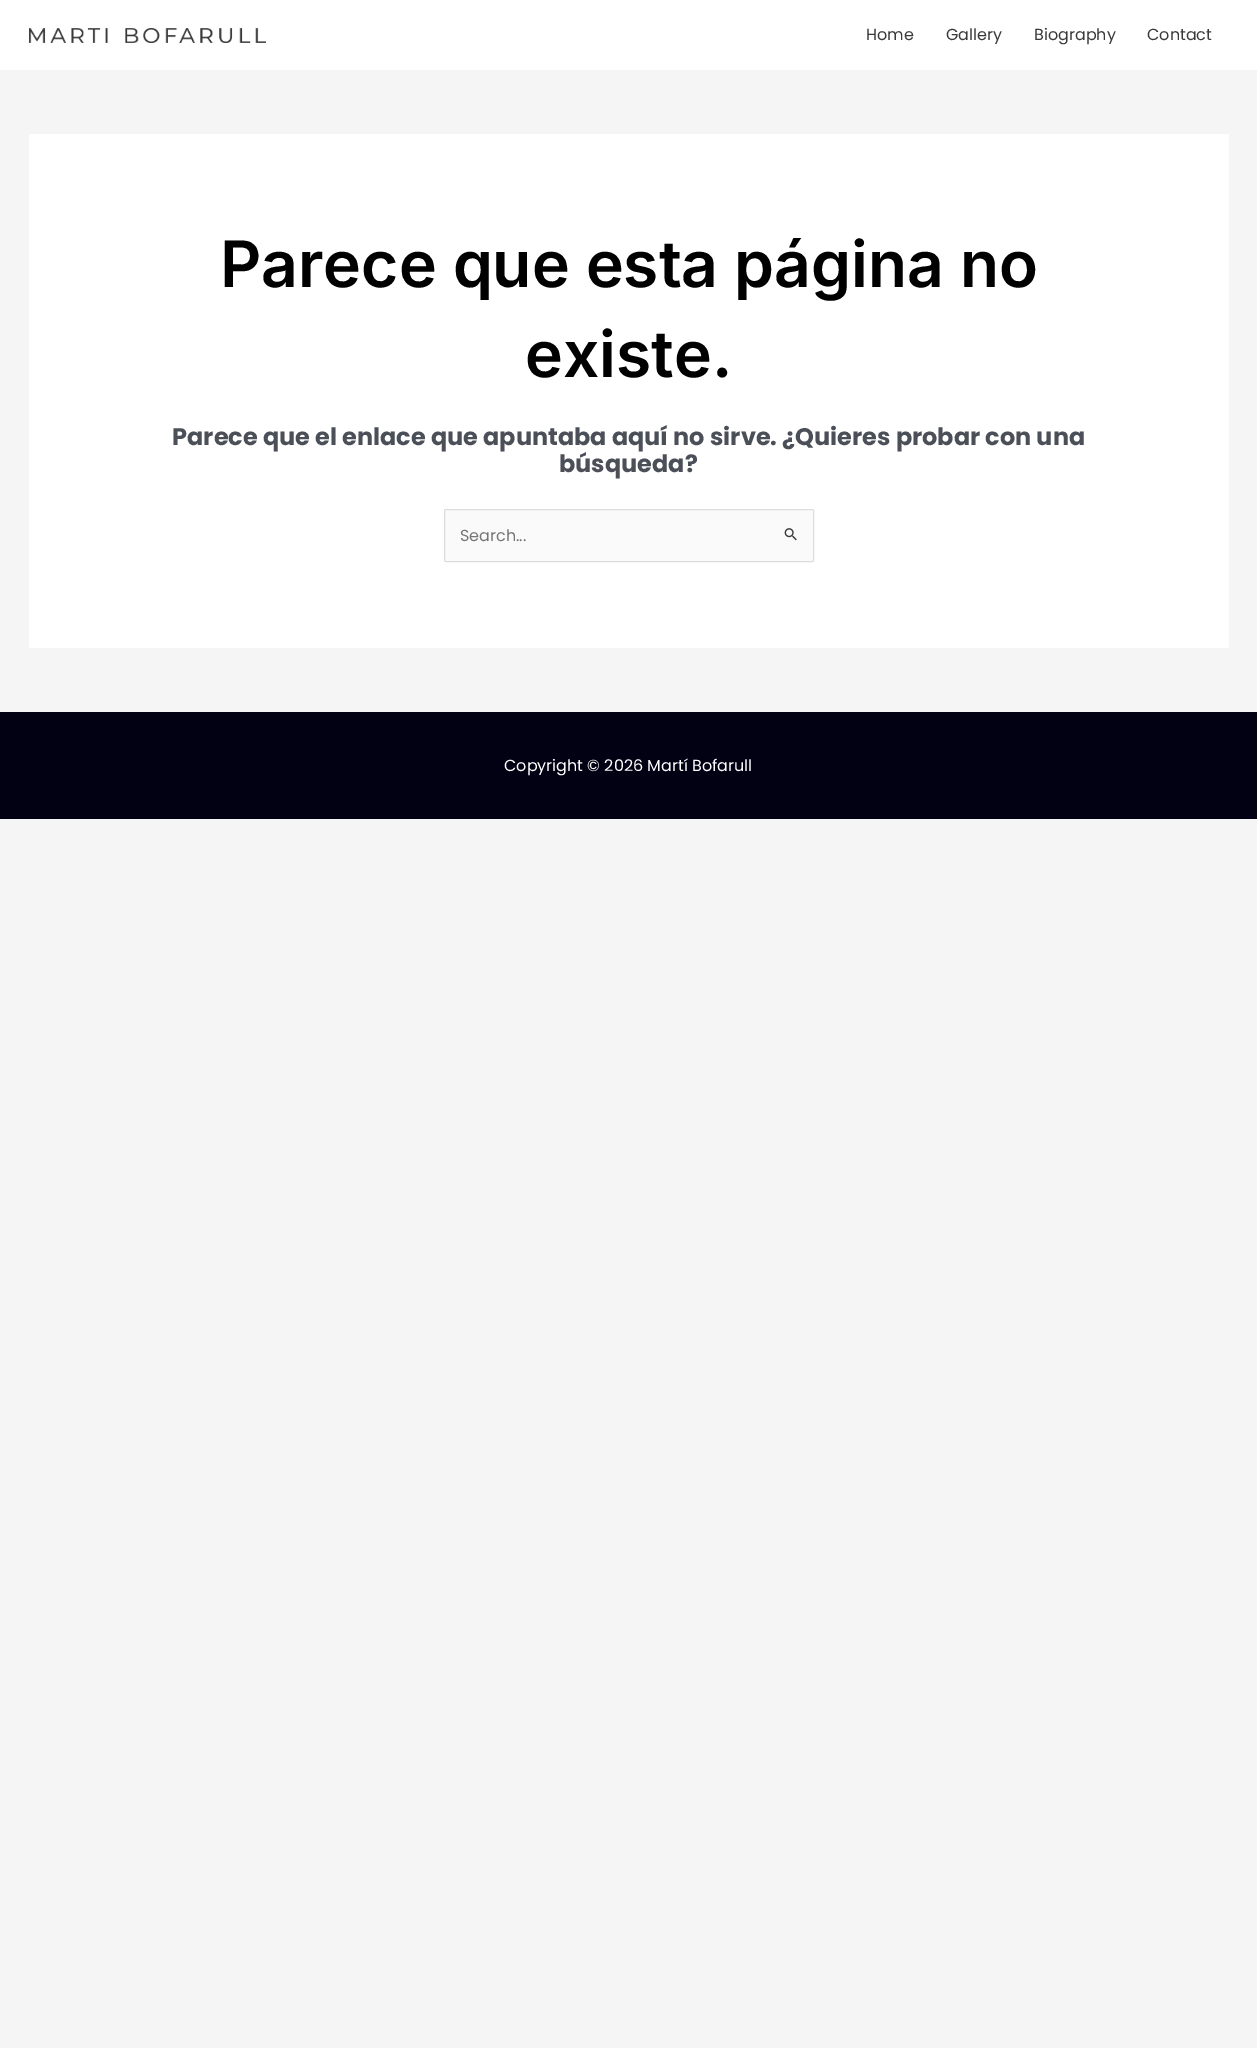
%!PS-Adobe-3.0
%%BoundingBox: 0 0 1257 2048
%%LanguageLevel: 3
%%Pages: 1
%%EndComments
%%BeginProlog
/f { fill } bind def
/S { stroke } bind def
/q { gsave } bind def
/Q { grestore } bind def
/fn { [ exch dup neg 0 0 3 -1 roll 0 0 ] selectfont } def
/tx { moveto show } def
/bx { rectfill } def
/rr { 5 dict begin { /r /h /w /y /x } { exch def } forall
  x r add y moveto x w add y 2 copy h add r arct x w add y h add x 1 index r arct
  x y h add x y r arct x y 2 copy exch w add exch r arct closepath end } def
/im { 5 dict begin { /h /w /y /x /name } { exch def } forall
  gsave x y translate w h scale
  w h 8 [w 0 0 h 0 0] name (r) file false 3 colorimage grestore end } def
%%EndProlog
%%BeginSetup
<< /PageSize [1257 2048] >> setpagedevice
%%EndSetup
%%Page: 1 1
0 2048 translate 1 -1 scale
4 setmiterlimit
0.961 setgray
0 0 1257 2048 bx
1 setgray
0 0 1257 70 bx
(image0.raw) 29 28 237 15 im
/Poppins-Regular 16 fn
0.227 setgray
(Home) 866 40 tx
(Gallery) 946 40 tx
(Biography) 1034 40 tx
(Contact) 1147 40 tx
1 setgray
29 134 1200 514 bx
/Inter-SemiBold 64 fn
0 setgray
(Parece que esta página no) 220 287 tx
(existe.) 525 377 tx
/Poppins-Bold 24 fn
0.294 0.31 0.345 setrgbcolor
(Parece que el enlace que apuntaba aquí no sirve. ¿Quieres probar con una) 172 445 tx
(búsqueda?) 559 472 tx
0.98 setgray
444.5 509.5 369 52 1.5 rr q f Q
0.867 setgray
S
/Poppins-Regular 16 fn
0.459 setgray
(Search...) 460 541 tx
(image1.raw) 784 528 13 13 im
0.008 0 0.075 setrgbcolor
0 712 1257 107 bx
1 setgray
(Copyright © 2026 Martí Bofarull) 504 771 tx
showpage
%%EOF
